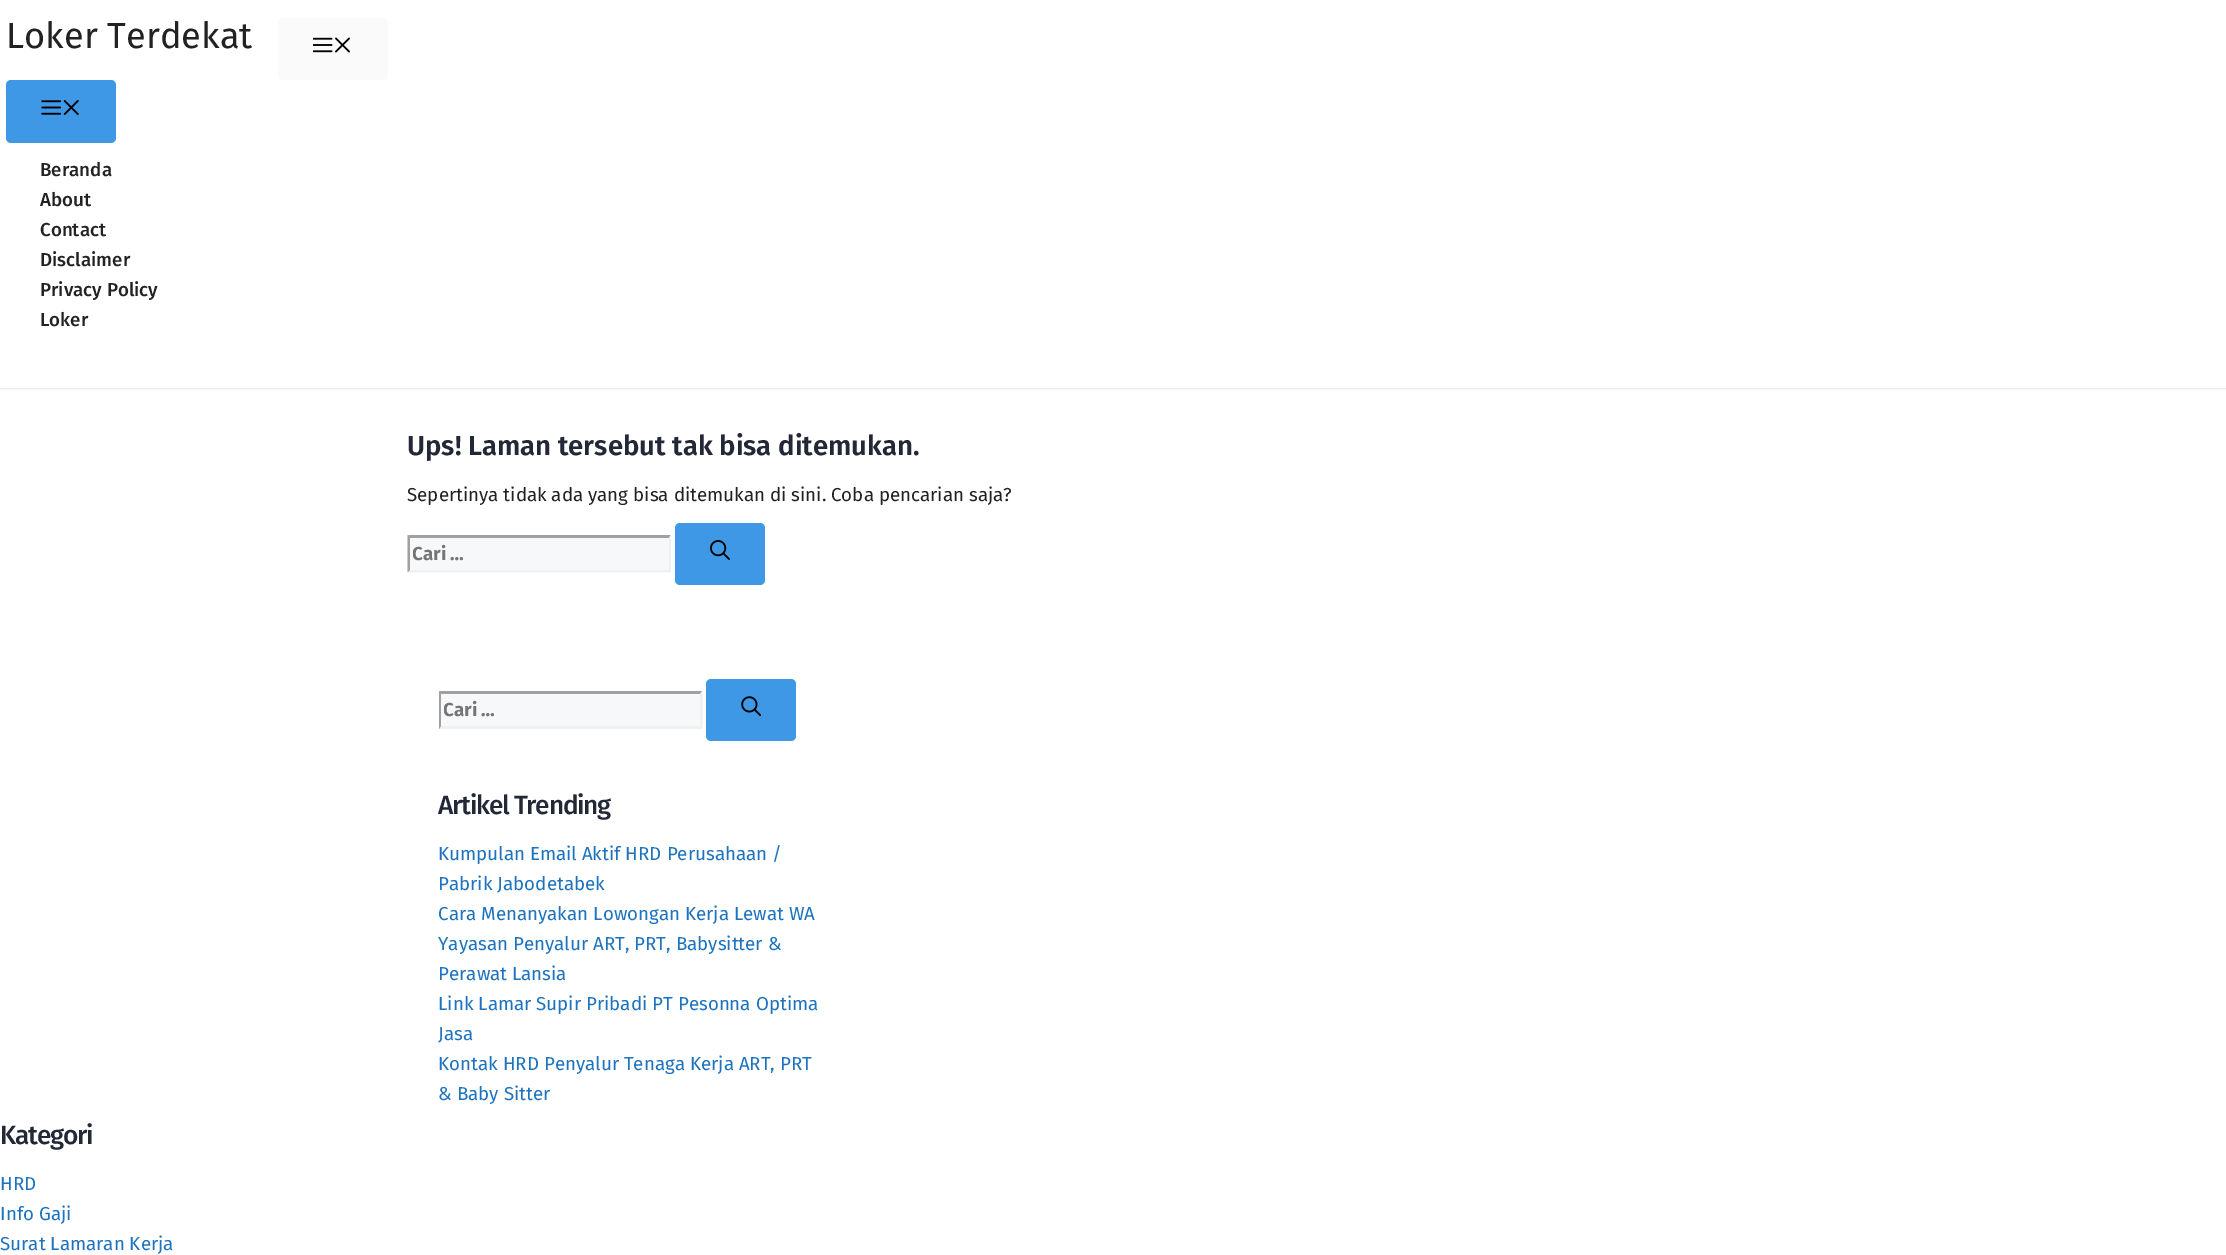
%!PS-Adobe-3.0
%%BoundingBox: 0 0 2226 1255
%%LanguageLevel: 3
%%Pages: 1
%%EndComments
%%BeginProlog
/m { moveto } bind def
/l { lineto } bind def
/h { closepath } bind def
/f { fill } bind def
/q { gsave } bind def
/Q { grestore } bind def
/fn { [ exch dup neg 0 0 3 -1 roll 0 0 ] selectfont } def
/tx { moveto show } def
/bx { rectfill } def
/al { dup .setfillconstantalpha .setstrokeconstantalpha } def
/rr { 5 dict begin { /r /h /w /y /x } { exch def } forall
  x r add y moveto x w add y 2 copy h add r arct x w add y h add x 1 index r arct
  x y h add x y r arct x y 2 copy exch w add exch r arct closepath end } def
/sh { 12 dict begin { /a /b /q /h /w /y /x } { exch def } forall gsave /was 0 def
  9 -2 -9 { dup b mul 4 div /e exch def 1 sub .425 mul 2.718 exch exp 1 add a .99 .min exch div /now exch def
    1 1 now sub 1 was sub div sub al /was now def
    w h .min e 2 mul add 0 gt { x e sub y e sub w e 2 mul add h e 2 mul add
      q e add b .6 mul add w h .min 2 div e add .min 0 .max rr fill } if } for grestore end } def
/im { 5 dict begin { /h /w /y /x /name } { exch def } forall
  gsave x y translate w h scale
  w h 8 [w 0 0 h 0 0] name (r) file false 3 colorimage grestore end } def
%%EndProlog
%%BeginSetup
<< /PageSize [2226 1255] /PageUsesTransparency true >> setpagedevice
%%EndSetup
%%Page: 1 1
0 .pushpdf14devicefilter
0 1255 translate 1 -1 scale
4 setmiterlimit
1 setgray
0 0 2226 1255 bx
0 setgray
0 -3 2226 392 0 1 0.1 sh
1 setgray
0 0 2226 388 bx
/FiraSans-Regular 36.25 fn
0.133 setgray
(Loker Terdekat) 6 48 tx
0.98 setgray
278 18 110 62 5 rr f
(image0.raw) 313 37 20 16 im
(image1.raw) 335 37 15 16 im
0.243 0.596 0.902 setrgbcolor
6 80 110 63 5 rr f
(image2.raw) 41 100 20 15 im
(image3.raw) 63 100 16 15 im
/FiraSans-Medium 18.75 fn
0.133 setgray
(Beranda) 40 176 tx
(About) 40 206 tx
(Contact) 40 236 tx
(Disclaimer) 40 266 tx
(Privacy Policy) 40 296 tx
(Loker) 40 326 tx
/FiraSans-SemiBold 27.5 fn
0.137 0.157 0.216 setrgbcolor
(Ups! Laman tersebut tak bisa ditemukan.) 407 455 tx
/FiraSans-Regular 18.75 fn
0.133 setgray
(Sepertinya tidak ada yang bisa ditemukan di sini. Coba pencarian saja?) 407 501 tx
0.969 0.973 0.976 setrgbcolor
408 535 263 38 bx
0.627 setgray
408 535 m 671 535 l 669 538 l 410 538 l h f
0.941 setgray
671 535 m 671 572.5 l 669 570 l 669 537.5 l h f
671 572 m 408 572 l 410 570 l 669 570 l h f
0.627 setgray
407.5 572.5 m 407.5 535 l 410 537.5 l 410 570 l h f
q
413 543 236 22 rectclip
/FiraSans-Bold 18.75 fn
0.459 setgray
(Cari …) 412 560 tx
Q
0.243 0.596 0.902 setrgbcolor
675 523 90 62 5 rr f
(image4.raw) 710 540 20 20 im
0.969 0.973 0.976 setrgbcolor
439 691 264 38 bx
0.627 setgray
439 691 m 702 691 l 700 694 l 441 694 l h f
0.941 setgray
702.5 691 m 702.5 729 l 700 726 l 700 694 l h f
702 729 m 439 729 l 441 726 l 700 726 l h f
0.627 setgray
439 729 m 439 691 l 441 694 l 441 726 l h f
q
444 699 236 22 rectclip
/FiraSans-Bold 18.75 fn
0.459 setgray
(Cari …) 443 716 tx
Q
0.243 0.596 0.902 setrgbcolor
706 679 90 62 5 rr f
(image5.raw) 741 696 20 20 im
/FiraSans-Medium 26.25 fn
0.137 0.157 0.216 setrgbcolor
438 814 m -1.25 0 (Artikel Trending) ashow
/FiraSans-Regular 18.75 fn
0.118 0.451 0.745 setrgbcolor
(Kumpulan Email Aktif HRD Perusahaan /) 438 860 tx
(Pabrik Jabodetabek) 438 890 tx
(Cara Menanyakan Lowongan Kerja Lewat WA) 438 920 tx
(Yayasan Penyalur ART, PRT, Babysitter &) 438 950 tx
(Perawat Lansia) 438 980 tx
(Link Lamar Supir Pribadi PT Pesonna Optima) 438 1010 tx
(Jasa) 438 1040 tx
(Kontak HRD Penyalur Tenaga Kerja ART, PRT) 438 1070 tx
(& Baby Sitter) 438 1100 tx
/FiraSans-Medium 26.25 fn
0.137 0.157 0.216 setrgbcolor
0 1144 m -1.25 0 (Kategori) ashow
/FiraSans-Regular 18.75 fn
0.118 0.451 0.745 setrgbcolor
(HRD) 0 1190 tx
(Info Gaji) 0 1220 tx
(Surat Lamaran Kerja) 0 1250 tx
.poppdf14devicefilter showpage
%%EOF
